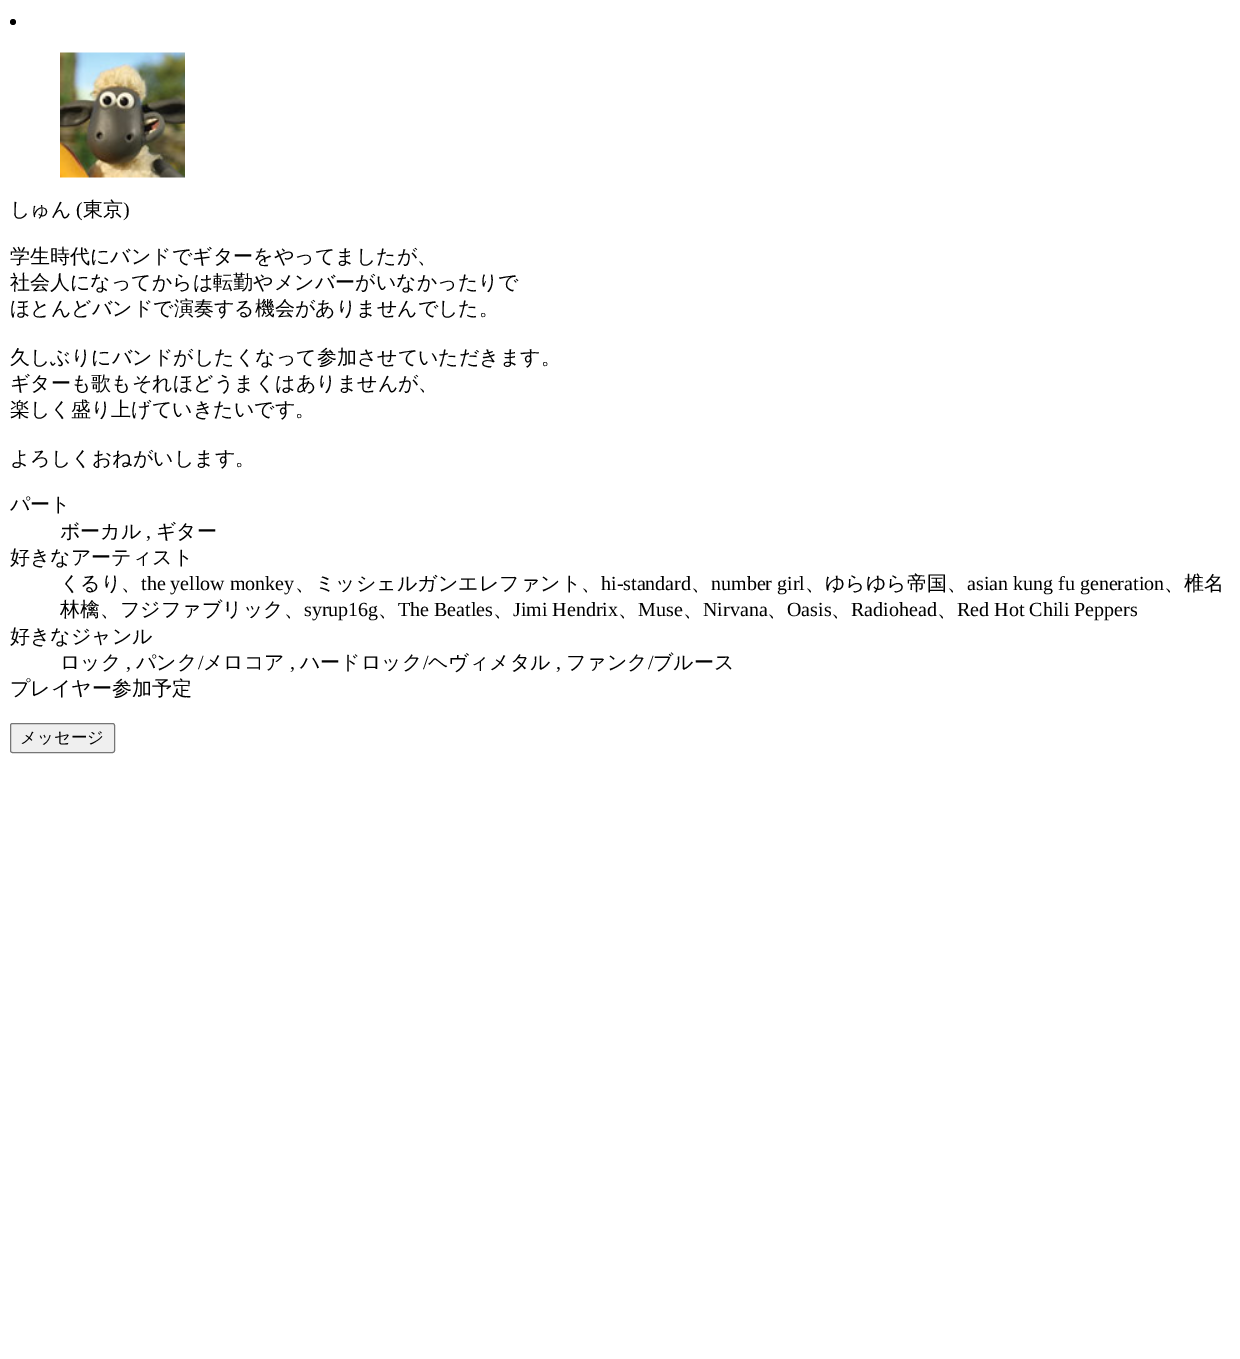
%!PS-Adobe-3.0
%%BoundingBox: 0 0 1240 1359
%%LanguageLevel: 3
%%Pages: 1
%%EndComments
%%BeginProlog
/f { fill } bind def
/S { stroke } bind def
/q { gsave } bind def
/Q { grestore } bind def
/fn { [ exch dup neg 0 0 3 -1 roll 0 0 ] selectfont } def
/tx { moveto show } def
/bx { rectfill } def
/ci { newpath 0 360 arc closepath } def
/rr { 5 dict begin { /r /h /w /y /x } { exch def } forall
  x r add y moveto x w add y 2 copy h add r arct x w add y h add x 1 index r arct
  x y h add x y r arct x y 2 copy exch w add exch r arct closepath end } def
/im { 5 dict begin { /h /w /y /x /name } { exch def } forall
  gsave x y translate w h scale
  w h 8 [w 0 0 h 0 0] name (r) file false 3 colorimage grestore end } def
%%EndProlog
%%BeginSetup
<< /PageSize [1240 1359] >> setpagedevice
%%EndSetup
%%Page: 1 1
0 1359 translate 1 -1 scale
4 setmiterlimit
1 setgray
0 0 1240 1359 bx
0 setgray
13 22 3 ci f
(image0.raw) 60 52 125 126 im
/WenQuanYiZenHei-Medium 20 fn
(しゅん) 10 216 tx
/LiberationSerif-Regular 20 fn
(\() 76 216 tx
/WenQuanYiZenHei-Medium 20 fn
(東京) 83 216 tx
/LiberationSerif-Regular 20 fn
(\)) 123 216 tx
/WenQuanYiZenHei-Medium 20 fn
(学生時代にバンドでギターをやってましたが、) 10 263 tx
(社会人になってからは転勤やメンバーがいなかったりで) 10 289 tx
(ほとんどバンドで演奏する機会がありませんでした。) 10 315 tx
(久しぶりにバンドがしたくなって参加させていただきます。) 10 364 tx
(ギターも歌もそれほどうまくはありませんが、) 10 390 tx
(楽しく盛り上げていきたいです。) 10 416 tx
(よろしくおねがいします。) 10 465 tx
(パート) 10 511 tx
(ボーカル) 60 538 tx
/LiberationSerif-Regular 20 fn
(,) 146 538 tx
/WenQuanYiZenHei-Medium 20 fn
(ギター) 156 538 tx
(好きなアーティスト) 10 564 tx
(くるり、) 60 590 tx
/LiberationSerif-Regular 20 fn
(the yellow monkey) 141 590 tx
/WenQuanYiZenHei-Medium 20 fn
(、ミッシェルガンエレファント、) 295 590 tx
/LiberationSerif-Regular 20 fn
(hi-standard) 601 590 tx
/WenQuanYiZenHei-Medium 20 fn
(、) 691 590 tx
/LiberationSerif-Regular 20 fn
(number girl) 711 590 tx
/WenQuanYiZenHei-Medium 20 fn
(、ゆらゆら帝国、) 805 590 tx
/LiberationSerif-Regular 20 fn
(asian kung fu generation) 967 590 tx
/WenQuanYiZenHei-Medium 20 fn
(、椎名) 1164 590 tx
(林檎、フジファブリック、) 60 616 tx
/LiberationSerif-Regular 20 fn
(syrup16g) 304 616 tx
/WenQuanYiZenHei-Medium 20 fn
(、) 378 616 tx
/LiberationSerif-Regular 20 fn
(The Beatles) 398 616 tx
/WenQuanYiZenHei-Medium 20 fn
(、) 493 616 tx
/LiberationSerif-Regular 20 fn
(Jimi Hendrix) 513 616 tx
/WenQuanYiZenHei-Medium 20 fn
(、) 618 616 tx
/LiberationSerif-Regular 20 fn
(Muse) 638 616 tx
/WenQuanYiZenHei-Medium 20 fn
(、) 683 616 tx
/LiberationSerif-Regular 20 fn
(Nirvana) 703 616 tx
/WenQuanYiZenHei-Medium 20 fn
(、) 767 616 tx
/LiberationSerif-Regular 20 fn
(Oasis) 787 616 tx
/WenQuanYiZenHei-Medium 20 fn
(、) 831 616 tx
/LiberationSerif-Regular 20 fn
(Radiohead) 851 616 tx
/WenQuanYiZenHei-Medium 20 fn
(、) 937 616 tx
/LiberationSerif-Regular 20 fn
(Red Hot Chili Peppers) 957 616 tx
/WenQuanYiZenHei-Medium 20 fn
(好きなジャンル) 10 643 tx
(ロック) 60 669 tx
/LiberationSerif-Regular 20 fn
(,) 126 669 tx
/WenQuanYiZenHei-Medium 20 fn
(パンク) 136 669 tx
/LiberationSerif-Regular 20 fn
(/) 198 669 tx
/WenQuanYiZenHei-Medium 20 fn
(メロコア) 203 669 tx
/LiberationSerif-Regular 20 fn
(,) 290 669 tx
/WenQuanYiZenHei-Medium 20 fn
(ハードロック) 300 669 tx
/LiberationSerif-Regular 20 fn
(/) 423 669 tx
/WenQuanYiZenHei-Medium 20 fn
(ヘヴィメタル) 428 669 tx
/LiberationSerif-Regular 20 fn
(,) 556 669 tx
/WenQuanYiZenHei-Medium 20 fn
(ファンク) 566 669 tx
/LiberationSerif-Regular 20 fn
(/) 648 669 tx
/WenQuanYiZenHei-Medium 20 fn
(ブルース) 653 669 tx
(プレイヤー参加予定) 10 695 tx
0.937 setgray
10.5 723.5 104 29 2 rr q f Q
0.463 setgray
S
/WenQuanYiZenHei-Medium 16.5 fn
0 setgray
(メッセージ) 20 743 tx
showpage
%%EOF
